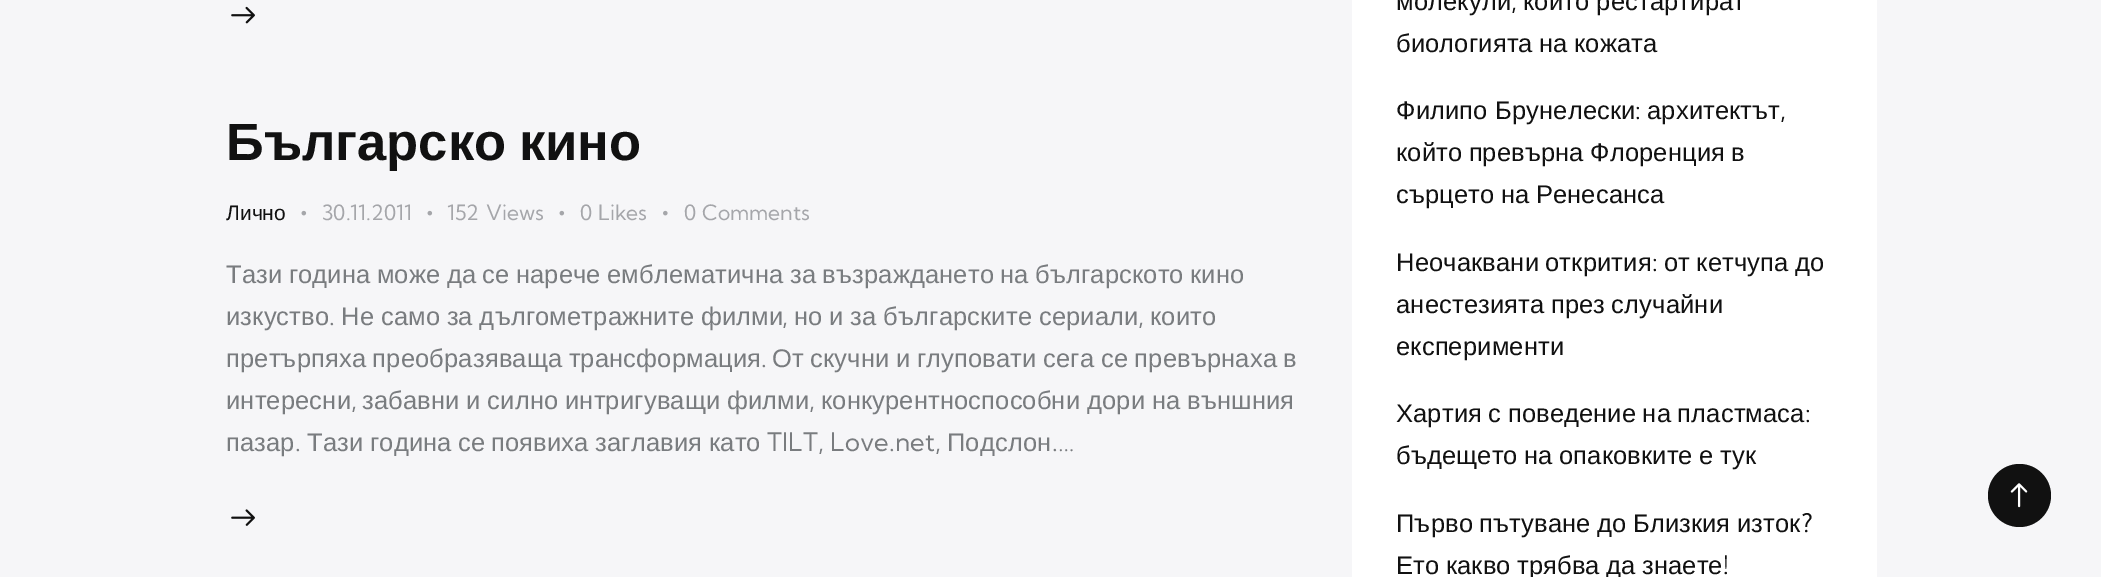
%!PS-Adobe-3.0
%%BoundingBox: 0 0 2101 577
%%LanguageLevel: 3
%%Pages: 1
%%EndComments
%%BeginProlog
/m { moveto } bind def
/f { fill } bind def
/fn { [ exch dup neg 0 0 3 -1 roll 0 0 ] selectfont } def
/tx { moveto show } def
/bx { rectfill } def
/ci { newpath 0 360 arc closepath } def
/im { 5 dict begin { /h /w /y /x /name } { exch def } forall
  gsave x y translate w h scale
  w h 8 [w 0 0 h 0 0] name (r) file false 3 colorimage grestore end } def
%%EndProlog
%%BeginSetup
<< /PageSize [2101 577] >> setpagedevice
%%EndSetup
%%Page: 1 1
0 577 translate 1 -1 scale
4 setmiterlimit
0.965 0.965 0.973 setrgbcolor
0 0 2101 577 bx
(image0.raw) 231 6 24 18 im
/LiberationSans-Bold 52.5 fn
0.067 setgray
226 160 m -2 0 32 (Българско кино) widthshow
/LiberationSans-Regular 21 fn
(Лично) 226 220 tx
(image1.raw) 301 210 6 6 im
/KumbhSans-Regular 21 fn
0.647 0.651 0.667 setrgbcolor
(30.11.2011) 322 220 tx
(image1.raw) 427 210 6 6 im
(152) 447 220 tx
(Views) 486 220 tx
(image1.raw) 559 210 6 6 im
(0) 580 220 tx
(Likes) 598 220 tx
(image2.raw) 663 210 5 6 im
(0) 684 220 tx
(Comments) 702 220 tx
/LiberationSans-Regular 25.5 fn
0.475 0.486 0.498 setrgbcolor
226 283 m -0.9 0 32 0.15 0 (Тази година може да се нарече емблематична за възраждането на българското кино) awidthshow
226 325 m 0.15 0 (изкуство) ashow
/KumbhSans-Regular 25.5 fn
329 325 m 0.15 0 (.) ashow
/LiberationSans-Regular 25.5 fn
341 325 m -0.5 0 32 0.15 0 (Не само за дългометражните филми) awidthshow
/KumbhSans-Regular 25.5 fn
782 325 m 0.15 0 (,) ashow
/LiberationSans-Regular 25.5 fn
794 325 m -0.5 0 32 0.15 0 (но и за българските сериали) awidthshow
/KumbhSans-Regular 25.5 fn
1138 325 m 0.15 0 (,) ashow
/LiberationSans-Regular 25.5 fn
1150 325 m 0.15 0 (които) ashow
226 367 m -0.75 0 32 0.15 0 (претърпяха преобразяваща трансформация) awidthshow
/KumbhSans-Regular 25.5 fn
761 367 m 0.15 0 (.) ashow
/LiberationSans-Regular 25.5 fn
772 367 m -0.75 0 32 0.15 0 (От скучни и глуповати сега се превърнаха в) awidthshow
226 409 m 0.15 0 (интересни) ashow
/KumbhSans-Regular 25.5 fn
351 409 m 0.15 0 (,) ashow
/LiberationSans-Regular 25.5 fn
362 409 m -0.5 0 32 0.15 0 (забавни и силно интригуващи филми) awidthshow
/KumbhSans-Regular 25.5 fn
809 409 m 0.15 0 (,) ashow
/LiberationSans-Regular 25.5 fn
821 409 m -0.5 0 32 0.15 0 (конкурентноспособни дори на външния) awidthshow
226 451 m 0.15 0 (пазар) ashow
/KumbhSans-Regular 25.5 fn
295 451 m 0.15 0 (.) ashow
/LiberationSans-Regular 25.5 fn
307 451 m 0.15 0 (Тази) ashow
370 451 m 0.15 0 (година) ashow
458 451 m 0.15 0 (се) ashow
491 451 m 0.15 0 (появиха) ashow
595 451 m 0.15 0 (заглавия) ashow
709 451 m 0.15 0 (като) ashow
/KumbhSans-Regular 25.5 fn
767 451 m 0.15 0 (TILT, Love.net,) ashow
/LiberationSans-Regular 25.5 fn
947 451 m 0.15 0 (Подслон) ashow
/KumbhSans-Regular 25.5 fn
1052 451 m 0.15 0 (.…) ashow
(image3.raw) 231 509 24 17 im
1 setgray
1352 0 525 577 bx
/LiberationSans-Regular 25.5 fn
0.067 setgray
1396 10 m 0.15 0 (молекули) ashow
/KumbhSans-Regular 25.5 fn
1511 10 m 0.15 0 (,) ashow
/LiberationSans-Regular 25.5 fn
1523 10 m 0.15 0 (които рестартират) ashow
1396 52 m -0.9 0 32 0.15 0 (биологията на кожата) awidthshow
1396 119 m 0.15 0 (Филипо Брунелески) ashow
/KumbhSans-Regular 25.5 fn
1635 119 m 0.15 0 (:) ashow
/LiberationSans-Regular 25.5 fn
1647 119 m 0.15 0 (архитектът) ashow
/KumbhSans-Regular 25.5 fn
1780 119 m 0.15 0 (,) ashow
/LiberationSans-Regular 25.5 fn
1396 161 m -0.9 0 32 0.15 0 (който превърна Флоренция в) awidthshow
1396 203 m -0.9 0 32 0.15 0 (сърцето на Ренесанса) awidthshow
1396 271 m -1 0 32 0.15 0 (Неочаквани открития) awidthshow
/KumbhSans-Regular 25.5 fn
1652 271 m 0.15 0 (:) ashow
/LiberationSans-Regular 25.5 fn
1664 271 m -1 0 32 0.15 0 (от кетчупа до) awidthshow
1396 313 m -0.9 0 32 0.15 0 (анестезията през случайни) awidthshow
1396 355 m 0.15 0 (експерименти) ashow
1396 422 m -0.9 0 32 0.15 0 (Хартия с поведение на пластмаса) awidthshow
/KumbhSans-Regular 25.5 fn
1805 422 m 0.15 0 (:) ashow
/LiberationSans-Regular 25.5 fn
1396 464 m -0.9 0 32 0.15 0 (бъдещето на опаковките е тук) awidthshow
1396 532 m -0.9 0 32 0.15 0 (Първо пътуване до Близкия изток) awidthshow
/KumbhSans-Regular 25.5 fn
1801 532 m 0.15 0 (?) ashow
/LiberationSans-Regular 25.5 fn
1396 574 m -0.9 0 32 0.15 0 (Ето какво трябва да знаете) awidthshow
/KumbhSans-Regular 25.5 fn
1723 574 m 0.15 0 (!) ashow
2019.5 495.5 31.5 ci f
(image4.raw) 2010 483 18 25 im
showpage
%%EOF
